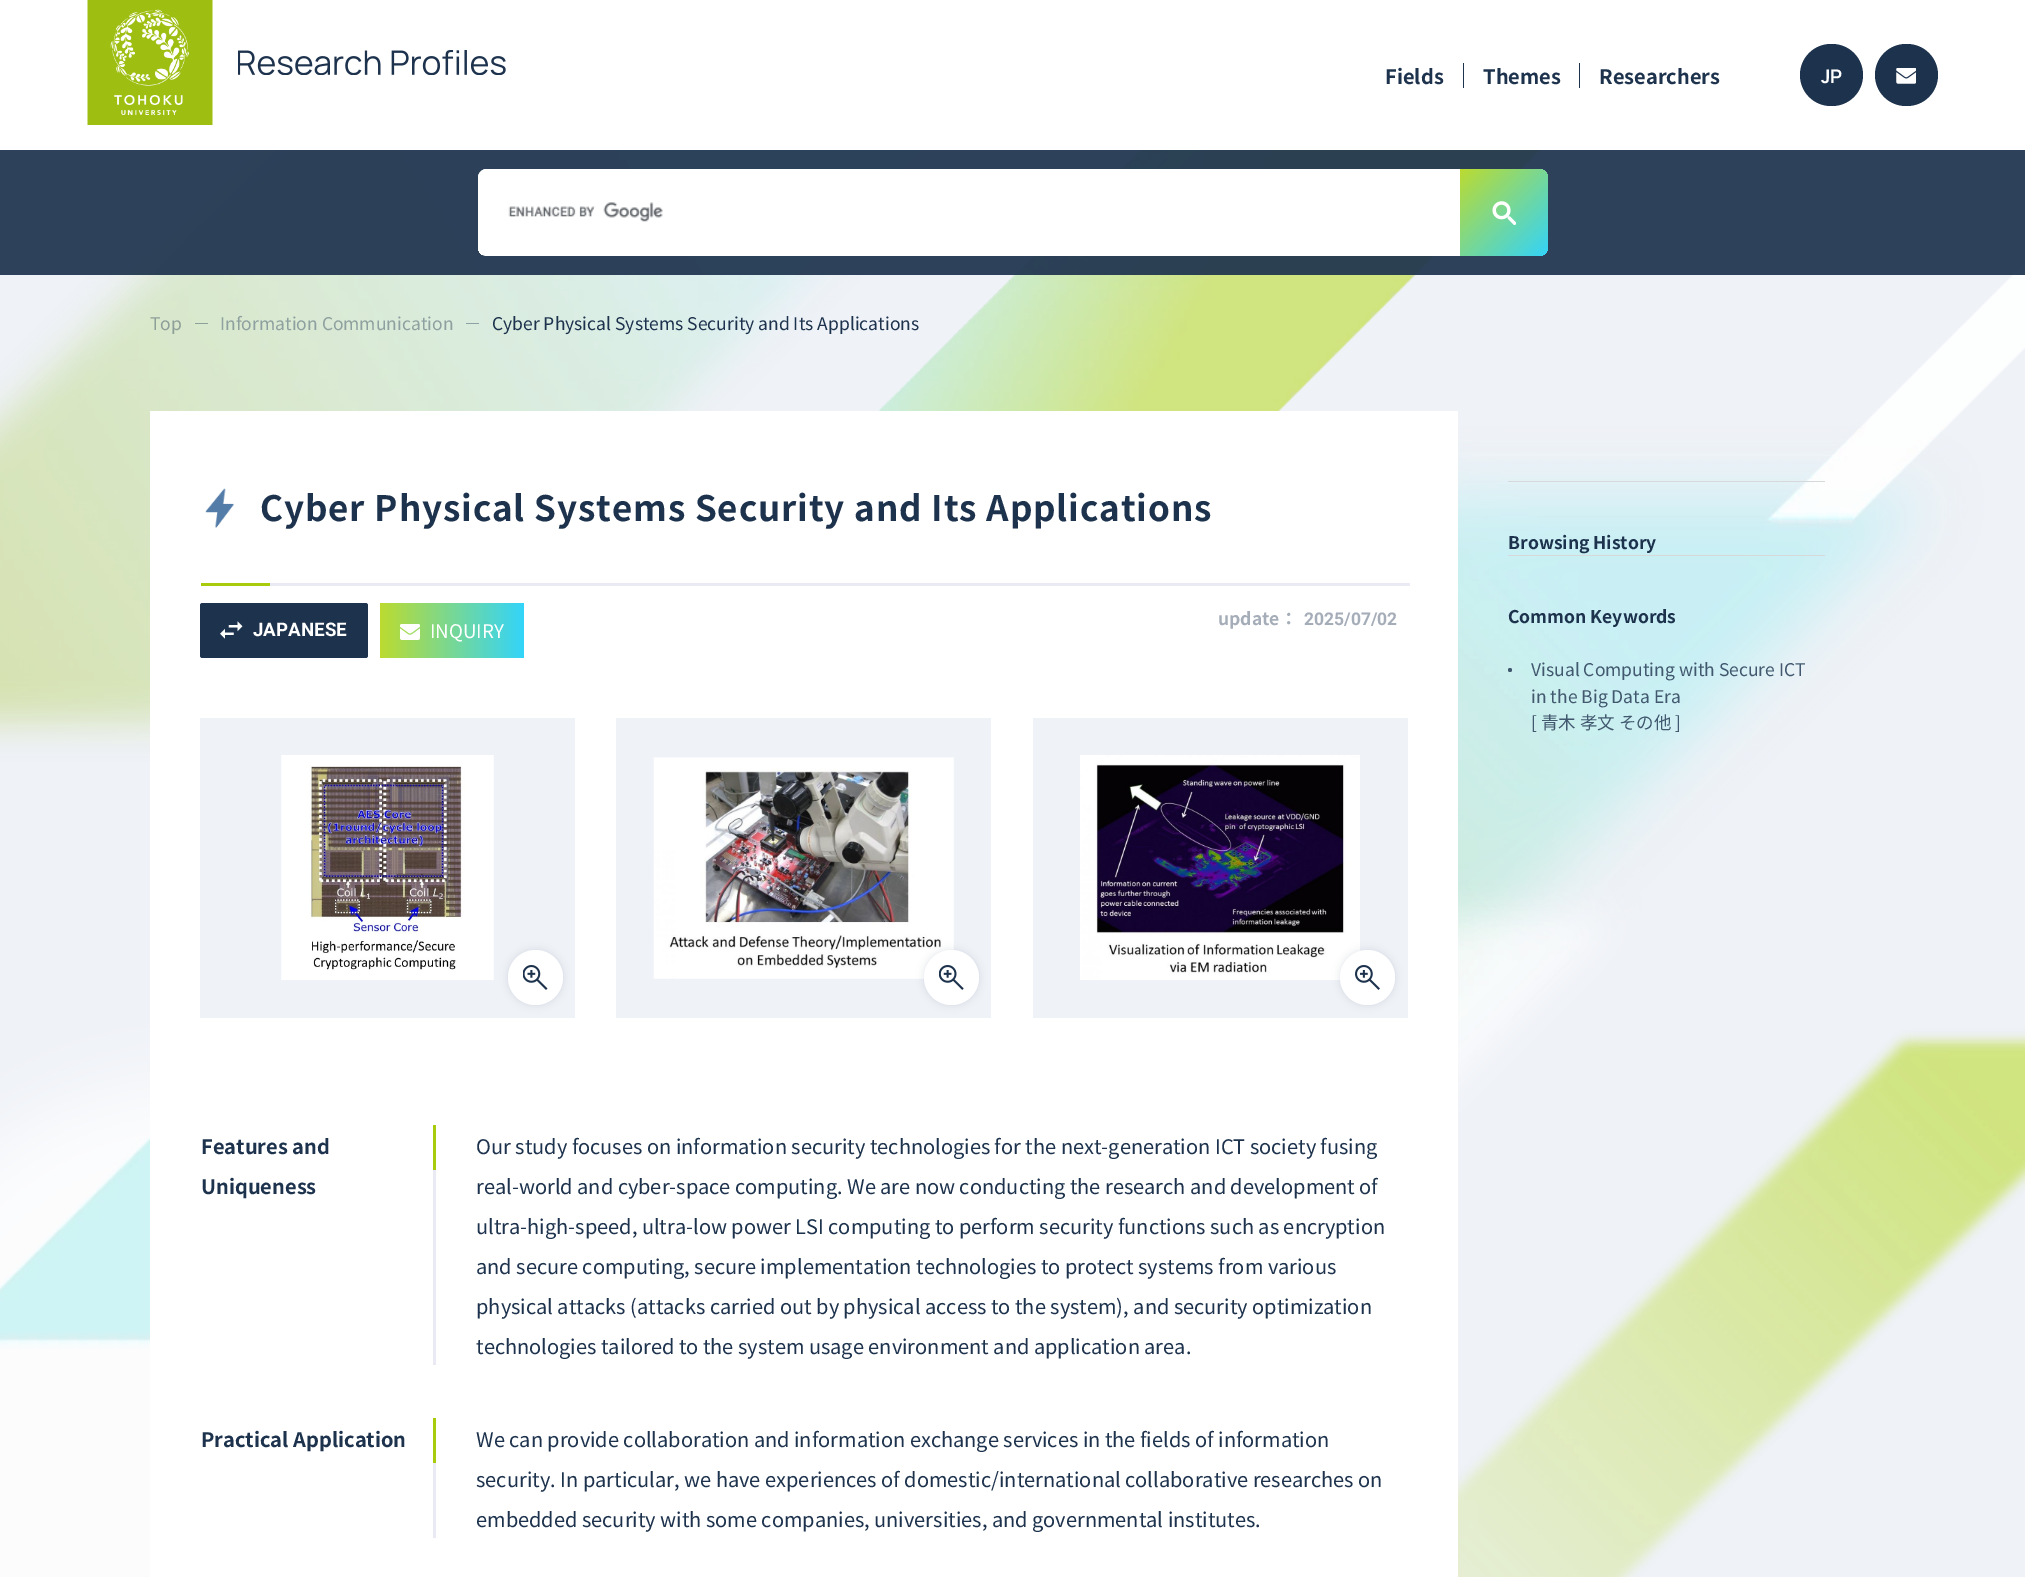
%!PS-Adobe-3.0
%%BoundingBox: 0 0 2025 1577
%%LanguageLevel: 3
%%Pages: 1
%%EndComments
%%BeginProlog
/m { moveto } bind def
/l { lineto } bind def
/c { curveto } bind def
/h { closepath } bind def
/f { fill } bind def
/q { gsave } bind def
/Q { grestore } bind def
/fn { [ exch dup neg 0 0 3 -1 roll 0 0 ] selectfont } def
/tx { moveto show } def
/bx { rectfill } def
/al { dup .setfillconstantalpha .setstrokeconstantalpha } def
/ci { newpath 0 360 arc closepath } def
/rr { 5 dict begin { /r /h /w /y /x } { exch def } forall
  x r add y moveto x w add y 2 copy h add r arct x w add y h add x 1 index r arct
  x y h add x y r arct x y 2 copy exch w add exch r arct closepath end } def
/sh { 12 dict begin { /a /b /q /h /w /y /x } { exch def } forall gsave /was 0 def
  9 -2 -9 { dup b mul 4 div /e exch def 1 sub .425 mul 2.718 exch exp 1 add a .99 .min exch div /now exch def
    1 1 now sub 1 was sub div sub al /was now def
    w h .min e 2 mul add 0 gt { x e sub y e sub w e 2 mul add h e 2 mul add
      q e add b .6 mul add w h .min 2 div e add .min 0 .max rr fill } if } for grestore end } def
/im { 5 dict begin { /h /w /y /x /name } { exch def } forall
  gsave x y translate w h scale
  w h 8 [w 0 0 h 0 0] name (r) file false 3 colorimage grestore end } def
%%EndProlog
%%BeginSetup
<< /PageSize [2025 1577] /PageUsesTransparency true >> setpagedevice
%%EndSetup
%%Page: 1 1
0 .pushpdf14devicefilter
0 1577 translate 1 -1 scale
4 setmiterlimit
0.937 0.949 0.969 setrgbcolor
0 0 2025 1577 bx
(image0.raw) 0 150 2025 1427 im
1 setgray
0 0 2025 150 bx
(image1.raw) 87 0 126 125 im
(image2.raw) 238 50 268 25 im
/NotoSansJP-Bold 20 fn
0.114 0.196 0.302 setrgbcolor
(Fields) 1385 84 tx
1463 63 1 25 bx
(Themes) 1483 84 tx
1579 63 1 25 bx
(Researchers) 1599 84 tx
1800 44 63 62 31 rr f
/Manrope-ExtraLight 18.75 fn
1 setgray
(JP) 1821 83 tx
0.114 0.196 0.302 setrgbcolor
1875 44 63 62 31 rr f
(image3.raw) 1896 68 20 16 im
0.92 al
0 150 2025 125 bx
1 al
1 setgray
478 169 1070 87 9 rr f
q
478 169 1070 87 9 rr clip newpath
487 169 m 1460 169 l 1460 255 l 478 255 l 478 178 l 478 173 482 169 487 169 c h f
Q
(image4.raw) 508 202 155 20 im
q 1462.5 169 m 1539 169 l 1544 169 1548 173 1548 178 c 1548 247 l 1548 252 1544 256 1539 256 c 1462.5 256 l 1461 256 1460 255 1460 253.5 c 1460 171.5 l 1460 170 1461 169 1462.5 169 c h clip newpath
<< /ShadingType 2 /ColorSpace /DeviceRGB /Coords [1460 169 1635 344] /Extend [true true] /Function << /FunctionType 3 /Domain [0 1] /Functions [<< /FunctionType 2 /Domain [0 1] /C0 [0.737 0.859 0.188] /C1 [0.2 0.831 0.98] /N 1 >> << /FunctionType 2 /Domain [0 1] /C0 [0.2 0.831 0.98] /C1 [0.737 0.859 0.188] /N 1 >>] /Bounds [0.5] /Encode [0 1 0 1] >> >> shfill Q
(image5.raw) 1492 201 24 24 im
/NotoSansJP-Regular 17.5 fn
0.557 0.624 0.6 setrgbcolor
(Top) 150 330 tx
0.557 0.627 0.604 setrgbcolor
195 323 13 1 bx
0.557 0.627 0.624 setrgbcolor
(Information Communication) 220 330 tx
0.557 0.635 0.643 setrgbcolor
466 323 13 1 bx
0.114 0.196 0.302 setrgbcolor
(Cyber Physical Systems Security and Its Applications) 492 330 tx
1 setgray
150 411 1308 1166 bx
(image6.raw) 205 488 29 40 im
/NotoSansJP-Bold 35 fn
0.114 0.196 0.302 setrgbcolor
260 521 m 0.88 0 (Cyber Physical Systems Security and Its Applications) ashow
0.914 0.918 0.957 setrgbcolor
270 583 1140 3 bx
0.659 0.8 0.047 setrgbcolor
201 583 69 3 bx
/NotoSansJP-Bold 17.5 fn
0.647 0.678 0.722 setrgbcolor
(update：) 1218 625 tx
/Roboto-Bold 17.5 fn
(2025/07/02) 1304 625 tx
0.114 0.196 0.302 setrgbcolor
200 603 168 55 2.5 rr f
(image7.raw) 220 621 23 18 im
/Roboto-Bold 18.75 fn
1 setgray
(JAPANESE) 253 636 tx
q 380 603 144 55 2.5 rr clip newpath
<< /ShadingType 2 /ColorSpace /DeviceRGB /Coords [380 630 668 630] /Extend [true true] /Function << /FunctionType 3 /Domain [0 1] /Functions [<< /FunctionType 2 /Domain [0 1] /C0 [0.737 0.859 0.188] /C1 [0.2 0.831 0.98] /N 1 >> << /FunctionType 2 /Domain [0 1] /C0 [0.2 0.831 0.98] /C1 [0.737 0.859 0.188] /N 1 >>] /Bounds [0.5] /Encode [0 1 0 1] >> >> shfill Q
(image8.raw) 400 624 20 16 im
/NotoSansJP-Regular 18.75 fn
(INQUIRY) 430 638 tx
0.937 0.949 0.969 setrgbcolor
200 718 375 300 bx
(image9.raw) 281 755 213 225 im
0.114 0.196 0.302 setrgbcolor
508 950 55 55 27.5 4 0.13 sh
1 setgray
535.5 977.5 27.5 ci f
(image10.raw) 523 965 25 25 im
0.937 0.949 0.969 setrgbcolor
616 718 375 300 bx
(image11.raw) 653 757 301 222 im
0.114 0.196 0.302 setrgbcolor
924 950 55 55 27.5 4 0.13 sh
1 setgray
951.5 977.5 27.5 ci f
(image12.raw) 939 965 25 25 im
0.937 0.949 0.969 setrgbcolor
1033 718 375 300 bx
(image13.raw) 1080 755 280 225 im
0.114 0.196 0.302 setrgbcolor
1340 950 55 55 27.5 4 0.13 sh
1 setgray
1367.5 977.5 27.5 ci f
(image14.raw) 1355 965 25 25 im
/NotoSansJP-Bold 20 fn
0.114 0.196 0.302 setrgbcolor
(Features and) 201 1154 tx
(Uniqueness) 201 1194 tx
0.914 0.918 0.957 setrgbcolor
433 1170 3 195 bx
0.659 0.8 0.047 setrgbcolor
433 1125 3 45 bx
/NotoSansJP-Regular 20 fn
0.114 0.196 0.302 setrgbcolor
(Our study focuses on information security technologies for the next-generation ICT society fusing) 476 1154 tx
(real-world and cyber-space computing. We are now conducting the research and development of) 476 1194 tx
(ultra-high-speed, ultra-low power LSI computing to perform security functions such as encryption) 476 1234 tx
(and secure computing, secure implementation technologies to protect systems from various) 476 1274 tx
(physical attacks \(attacks carried out by physical access to the system\), and security optimization) 476 1314 tx
(technologies tailored to the system usage environment and application area.) 476 1354 tx
/NotoSansJP-Bold 20 fn
(Practical Application) 201 1447 tx
0.914 0.918 0.957 setrgbcolor
433 1463 3 75 bx
0.659 0.8 0.047 setrgbcolor
433 1418 3 45 bx
/NotoSansJP-Regular 20 fn
0.114 0.196 0.302 setrgbcolor
(We can provide collaboration and information exchange services in the fields of information) 476 1447 tx
(security. In particular, we have experiences of domestic/international collaborative researches on) 476 1487 tx
(embedded security with some companies, universities, and governmental institutes.) 476 1527 tx
0.839 0.847 0.855 setrgbcolor
1508 481 317 1 bx
/NotoSansJP-Bold 17.5 fn
0.114 0.196 0.302 setrgbcolor
(Browsing History) 1508 549 tx
0.839 0.847 0.855 setrgbcolor
1508 555 317 1 bx
0.114 0.196 0.302 setrgbcolor
(Common Keywords) 1508 623 tx
0.251 0.345 0.427 setrgbcolor
1510 670 2 ci f
/NotoSansJP-Regular 17.5 fn
0.255 0.345 0.431 setrgbcolor
(Visual Computing with Secure ICT) 1531 676 tx
(in the Big Data Era) 1531 703 tx
([ 青木 孝文 その他 ]) 1531 729 tx
.poppdf14devicefilter showpage
%%EOF
